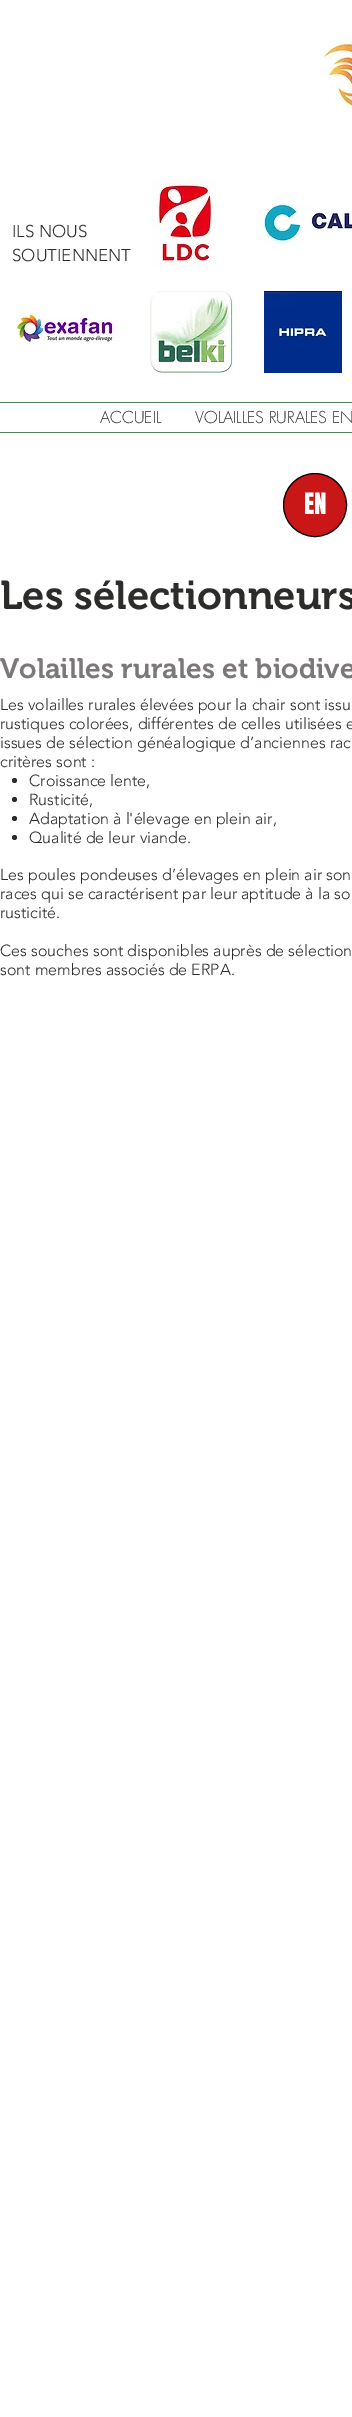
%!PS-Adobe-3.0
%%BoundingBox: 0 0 352 2417
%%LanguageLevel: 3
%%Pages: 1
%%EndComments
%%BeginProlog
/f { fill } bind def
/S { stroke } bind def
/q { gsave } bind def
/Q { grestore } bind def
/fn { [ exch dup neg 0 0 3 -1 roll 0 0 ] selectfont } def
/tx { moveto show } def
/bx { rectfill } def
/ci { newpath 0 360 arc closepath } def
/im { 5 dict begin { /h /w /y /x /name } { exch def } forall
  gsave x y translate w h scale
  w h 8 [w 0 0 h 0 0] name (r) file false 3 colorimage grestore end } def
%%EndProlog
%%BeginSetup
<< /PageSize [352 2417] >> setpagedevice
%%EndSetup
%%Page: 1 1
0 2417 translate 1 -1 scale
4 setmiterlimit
1 setgray
0 0 352 2417 bx
(image0.raw) 324 37 28 72 im
/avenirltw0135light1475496-Light 17 fn
0.173 0.173 0.169 setrgbcolor
(ILS NOUS) 12 237 tx
(SOUTIENNENT) 12 261 tx
(image1.raw) 152 179 65 88 im
(image2.raw) 261 203 91 41 im
(image3.raw) 15 310 104 32 im
(image4.raw) 149 291 84 82 im
(image5.raw) 264 291 78 82 im
0.325 0.51 0.333 setrgbcolor
0 402 352 1 bx
0 432 352 1 bx
/futura-Light 16 fn
0.173 0.173 0.169 setrgbcolor
(ACCUEIL) 100 423 tx
(VOLAILLES RURALES EN) 195 423 tx
0.788 0.086 0.086 setrgbcolor
315 505 31.5 ci q f Q
0 setgray
S
/Anton-Regular 25 fn
1 setgray
(EN) 304 514 tx
/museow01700-SemiBold 40 fn
0.173 0.173 0.169 setrgbcolor
(Les sélectionneurs) 0 609 tx
/museow01700-SemiBold 28 fn
0.486 0.471 0.471 setrgbcolor
(Volailles rurales et biodive) 0 678 tx
/avenirltw0135light1475496-Light 16 fn
0.173 0.173 0.169 setrgbcolor
(Les volailles rurales élevées pour la chair sont issu) 0 710 tx
(rustiques colorées, différentes de celles utilisées e) 0 729 tx
(issues de sélection généalogique d’anciennes rac) 0 748 tx
(critères sont :) 0 767 tx
14.5 780.5 2.5 ci f
(Croissance lente,) 29 786 tx
14.5 799.5 2.5 ci f
(Rusticité,) 29 805 tx
14.5 818.5 2.5 ci f
(Adaptation à l'élevage en plein air,) 29 824 tx
14.5 837.5 2.5 ci f
(Qualité de leur viande.) 29 843 tx
(Les poules pondeuses d’élevages en plein air son) 0 880 tx
(races qui se caractérisent par leur aptitude à la so) 0 899 tx
(rusticité.) 0 918 tx
(Ces souches sont disponibles auprès de sélection) 0 956 tx
(sont membres associés de ERPA.) 0 975 tx
showpage
%%EOF
